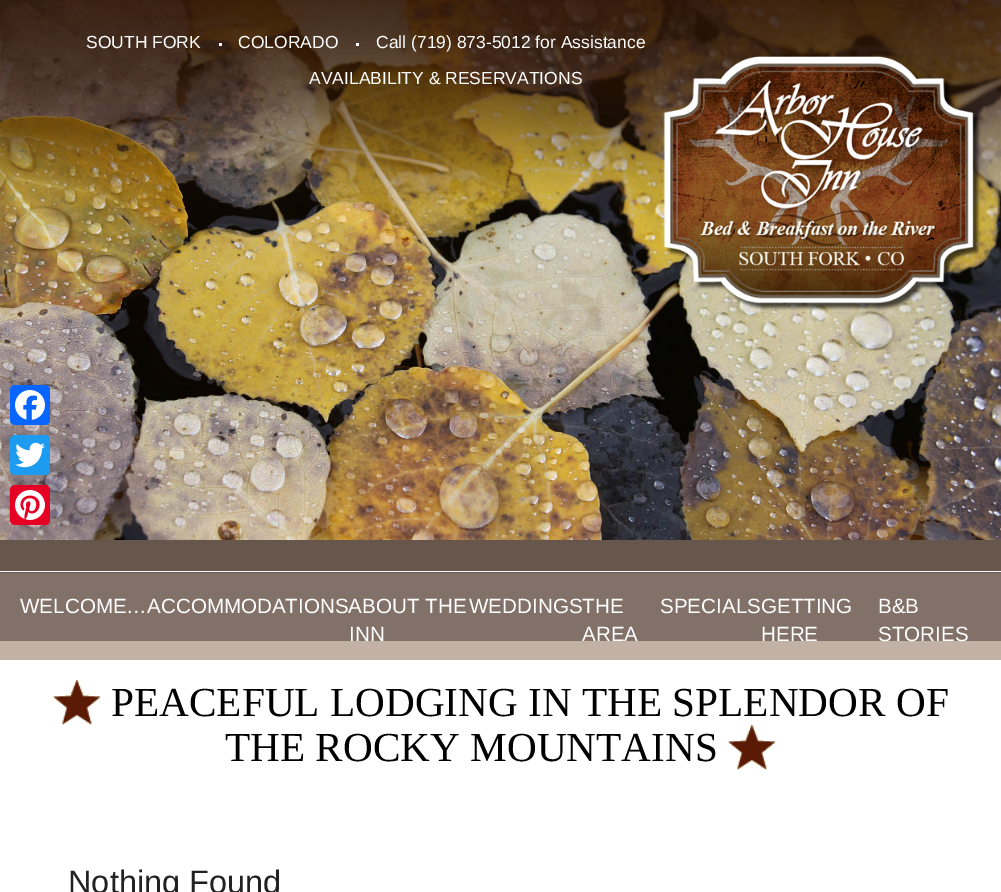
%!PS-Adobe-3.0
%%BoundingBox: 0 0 1001 892
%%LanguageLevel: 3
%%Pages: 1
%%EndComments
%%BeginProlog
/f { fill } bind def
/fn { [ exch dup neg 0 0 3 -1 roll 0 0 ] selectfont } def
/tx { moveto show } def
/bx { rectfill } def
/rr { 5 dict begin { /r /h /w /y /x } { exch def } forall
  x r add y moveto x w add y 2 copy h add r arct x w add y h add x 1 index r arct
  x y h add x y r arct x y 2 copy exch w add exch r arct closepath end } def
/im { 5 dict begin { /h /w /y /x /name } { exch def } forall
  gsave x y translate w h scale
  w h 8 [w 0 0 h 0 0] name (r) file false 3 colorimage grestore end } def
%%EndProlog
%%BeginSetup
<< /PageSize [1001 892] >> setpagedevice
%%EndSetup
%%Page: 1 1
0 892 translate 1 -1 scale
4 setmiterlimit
0.4 0.337 0.294 setrgbcolor
0 0 1001 892 bx
(image0.raw) 0 0 1001 540 im
(image1.raw) 0 0 1001 204 im
/LiberationSans-Regular 17.5 fn
1 setgray
(SOUTH FORK) 86 48 tx
219 43 3 3 bx
(COLORADO) 238 48 tx
356 43 3 3 bx
(Call \(719\) 873-5012 for Assistance) 376 48 tx
(AVAILABILITY & RESERVATIONS) 309 84 tx
(image2.raw) 663 56 318 255 im
0.031 0.4 1 setrgbcolor
10 385 40 40 5 rr f
(image3.raw) 15 390 30 30 im
0.114 0.608 0.941 setrgbcolor
10 435 40 40 5 rr f
(image4.raw) 15 442 30 26 im
0.902 0 0.137 setrgbcolor
10 485 40 40 5 rr f
(image5.raw) 15 490 30 30 im
1 setgray
0 571 1001 1 bx
0.51 0.443 0.412 setrgbcolor
0 573 1001 68 bx
0.761 0.698 0.647 setrgbcolor
0 641 1001 19 bx
/LiberationSans-Regular 20.6 fn
1 setgray
(WELCOME…ACCOMMODATIONSABOUT THE) 20 613 tx
(WEDDINGSTHE) 469 613 tx
(SPECIALSGETTING) 660 613 tx
(B&B) 878 613 tx
(STORIES) 878 641 tx
(INN) 349 641 tx
(AREA) 582 641 tx
(HERE) 761 641 tx
0 660 1001 232 bx
(image6.raw) 53 680 48 45 im
/LiberationSerif-Regular 41.25 fn
0 setgray
(PEACEFUL LODGING IN THE SPLENDOR OF) 111 716 tx
(THE ROCKY MOUNTAINS) 225 761 tx
(image7.raw) 728 725 48 45 im
/LiberationSans-Regular 32.5 fn
0.133 setgray
(Nothing Found) 68 893 tx
showpage
%%EOF
